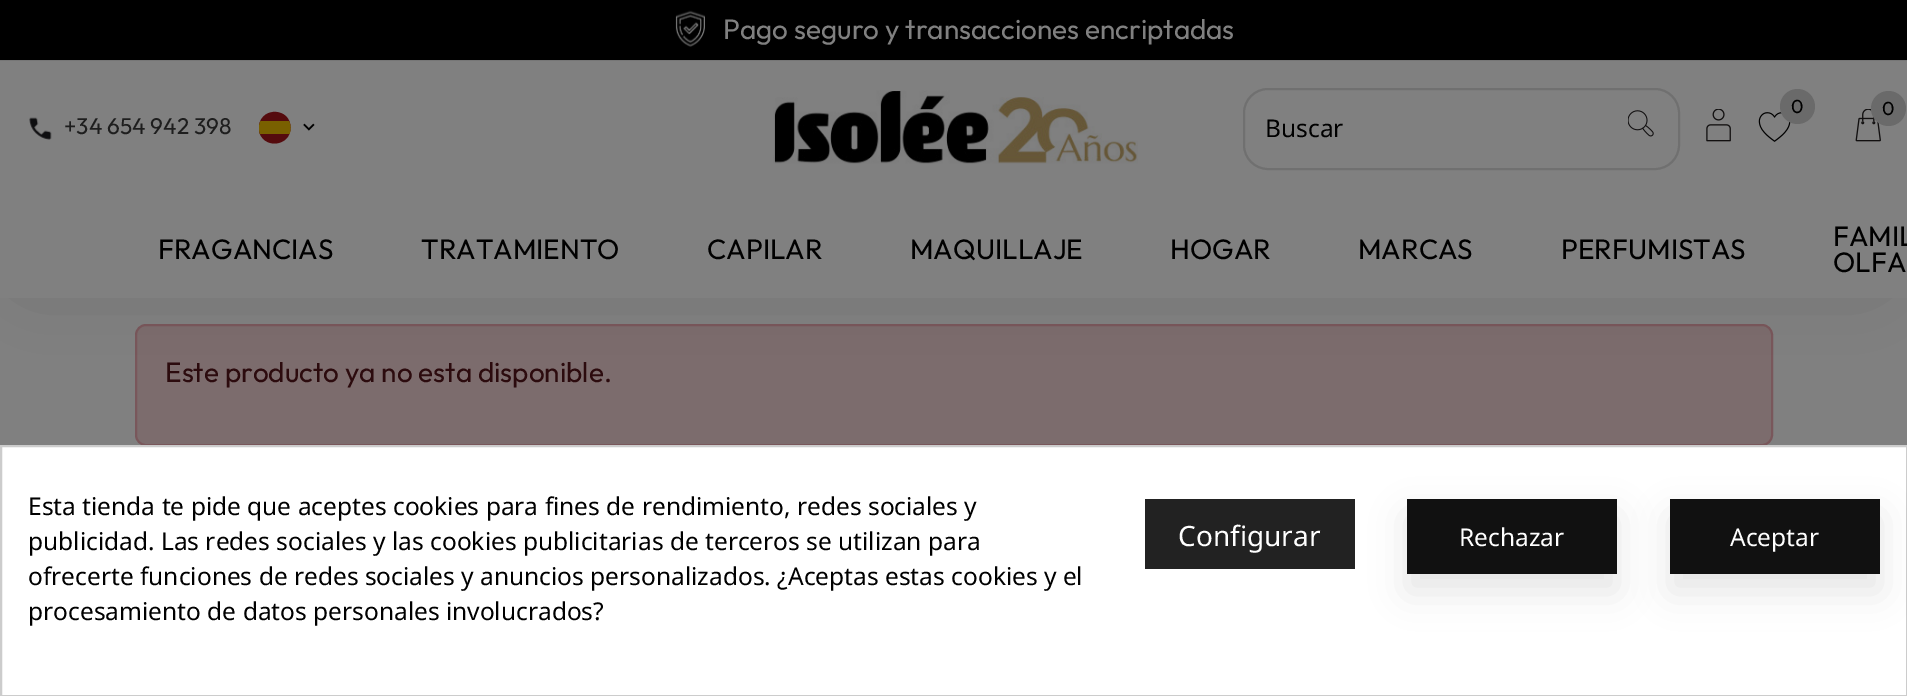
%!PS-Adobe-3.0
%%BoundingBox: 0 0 1907 696
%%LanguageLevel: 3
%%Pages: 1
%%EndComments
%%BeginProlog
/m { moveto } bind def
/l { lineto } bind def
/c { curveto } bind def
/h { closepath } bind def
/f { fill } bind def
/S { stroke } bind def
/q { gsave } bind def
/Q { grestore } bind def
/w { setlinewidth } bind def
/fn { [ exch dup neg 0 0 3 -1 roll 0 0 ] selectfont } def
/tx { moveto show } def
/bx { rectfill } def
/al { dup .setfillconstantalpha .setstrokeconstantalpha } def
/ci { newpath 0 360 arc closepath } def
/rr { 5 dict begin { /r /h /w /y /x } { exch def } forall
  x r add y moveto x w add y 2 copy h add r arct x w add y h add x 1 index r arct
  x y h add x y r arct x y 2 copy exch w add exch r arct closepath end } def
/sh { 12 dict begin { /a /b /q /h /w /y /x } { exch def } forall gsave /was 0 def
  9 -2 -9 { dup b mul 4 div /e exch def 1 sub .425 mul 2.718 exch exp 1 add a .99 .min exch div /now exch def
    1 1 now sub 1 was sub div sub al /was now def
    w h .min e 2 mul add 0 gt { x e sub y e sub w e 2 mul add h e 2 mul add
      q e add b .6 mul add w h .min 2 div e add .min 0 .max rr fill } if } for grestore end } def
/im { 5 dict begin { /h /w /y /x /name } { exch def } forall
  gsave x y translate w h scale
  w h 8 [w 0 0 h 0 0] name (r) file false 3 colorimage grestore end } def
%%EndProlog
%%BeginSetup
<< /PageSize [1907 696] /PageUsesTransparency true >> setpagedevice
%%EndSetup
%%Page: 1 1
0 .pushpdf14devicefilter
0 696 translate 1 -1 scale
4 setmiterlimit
0.502 setgray
0 0 1907 696 bx
0.486 0.424 0.427 setrgbcolor
136 325 1636 120 10 rr q f Q
0.475 0.341 0.357 setrgbcolor
2 w
S
0 setgray
32 39 1837 227 0 39.5 0.3 sh
0 0 1907 60 bx
0.463 setgray
0 60 1907 1 bx
(image0.raw) 675 10 30 37 im
/Outfit-Regular 28 fn
0.502 setgray
(Pago seguro y transacciones encriptadas) 723 39 tx
0 61 1907 237 bx
(image1.raw) 29 117 23 23 im
/Outfit-Regular 22.75 fn
0.118 setgray
(+34 654 942 398) 64 134 tx
0.333 0.043 0.055 setrgbcolor
259 125.5 m 262 106 291 108 290.5 128 c 290.5 145.5 265.5 149.5 259.5 133 c 259 130.5 259 128 259 125.5 c h f
0.475 0.376 0 setrgbcolor
259 125.5 m 260.5 121 l 289 121 l 291 125 291 130 289.5 134 c 260 134 l 259 131 259 128.5 259 125.5 c h f
(image2.raw) 303 123 12 8 im
(image3.raw) 773 90 365 74 im
0.439 setgray
1244 89 435 80 24 rr S
/NotoSans-Regular 24.5 fn
0 setgray
(Buscar) 1265 137 tx
(image4.raw) 1628 110 26 27 im
(image5.raw) 1706 109 25 33 im
(image6.raw) 1758 112 33 30 im
0.416 setgray
1797.5 106.5 17.5 ci f
/Outfit-Regular 19 fn
0 setgray
(0) 1791 113 tx
(image7.raw) 1855 109 26 33 im
0.416 setgray
1888.5 108.5 17.5 ci f
0 setgray
(0) 1882 115 tx
/Outfit-Regular 28 fn
(FRAGANCIAS) 158 259 tx
(TRATAMIENTO) 421 259 tx
(CAPILAR) 707 259 tx
(MAQUILLAJE) 910 259 tx
(HOGAR) 1170 259 tx
(MARCAS) 1358 259 tx
(PERFUMISTAS) 1561 259 tx
(FAMIL) 1833 246 tx
(OLFA) 1833 272 tx
0.173 0.043 0.055 setrgbcolor
(Este producto ya no esta disponible.) 165 382 tx
1 setgray
1 446 m 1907 446 l 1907 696 l 1 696 l h q f Q
0.8 setgray
S
/NotoSans-Regular 24.5 fn
0 setgray
(Esta tienda te pide que aceptes cookies para fines de rendimiento, redes sociales y) 28 515 tx
(publicidad. Las redes sociales y las cookies publicitarias de terceros se utilizan para) 28 550 tx
(ofrecerte funciones de redes sociales y anuncios personalizados. ¿Aceptas estas cookies y el) 28 585 tx
(procesamiento de datos personales involucrados?) 28 620 tx
0.133 setgray
1145 499 210 70 bx
/NotoSans-Regular 28 fn
1 setgray
(Configurar) 1178 546 tx
0 setgray
1407 516 210 76 0 17.5 0.1 sh
0.067 setgray
1407 499 210 75 bx
/NotoSans-Regular 24.5 fn
1 setgray
(Rechazar) 1459 546 tx
0 setgray
1670 516 210 76 0 17.5 0.1 sh
0.067 setgray
1670 499 210 75 bx
1 setgray
(Aceptar) 1730 546 tx
.poppdf14devicefilter showpage
%%EOF
